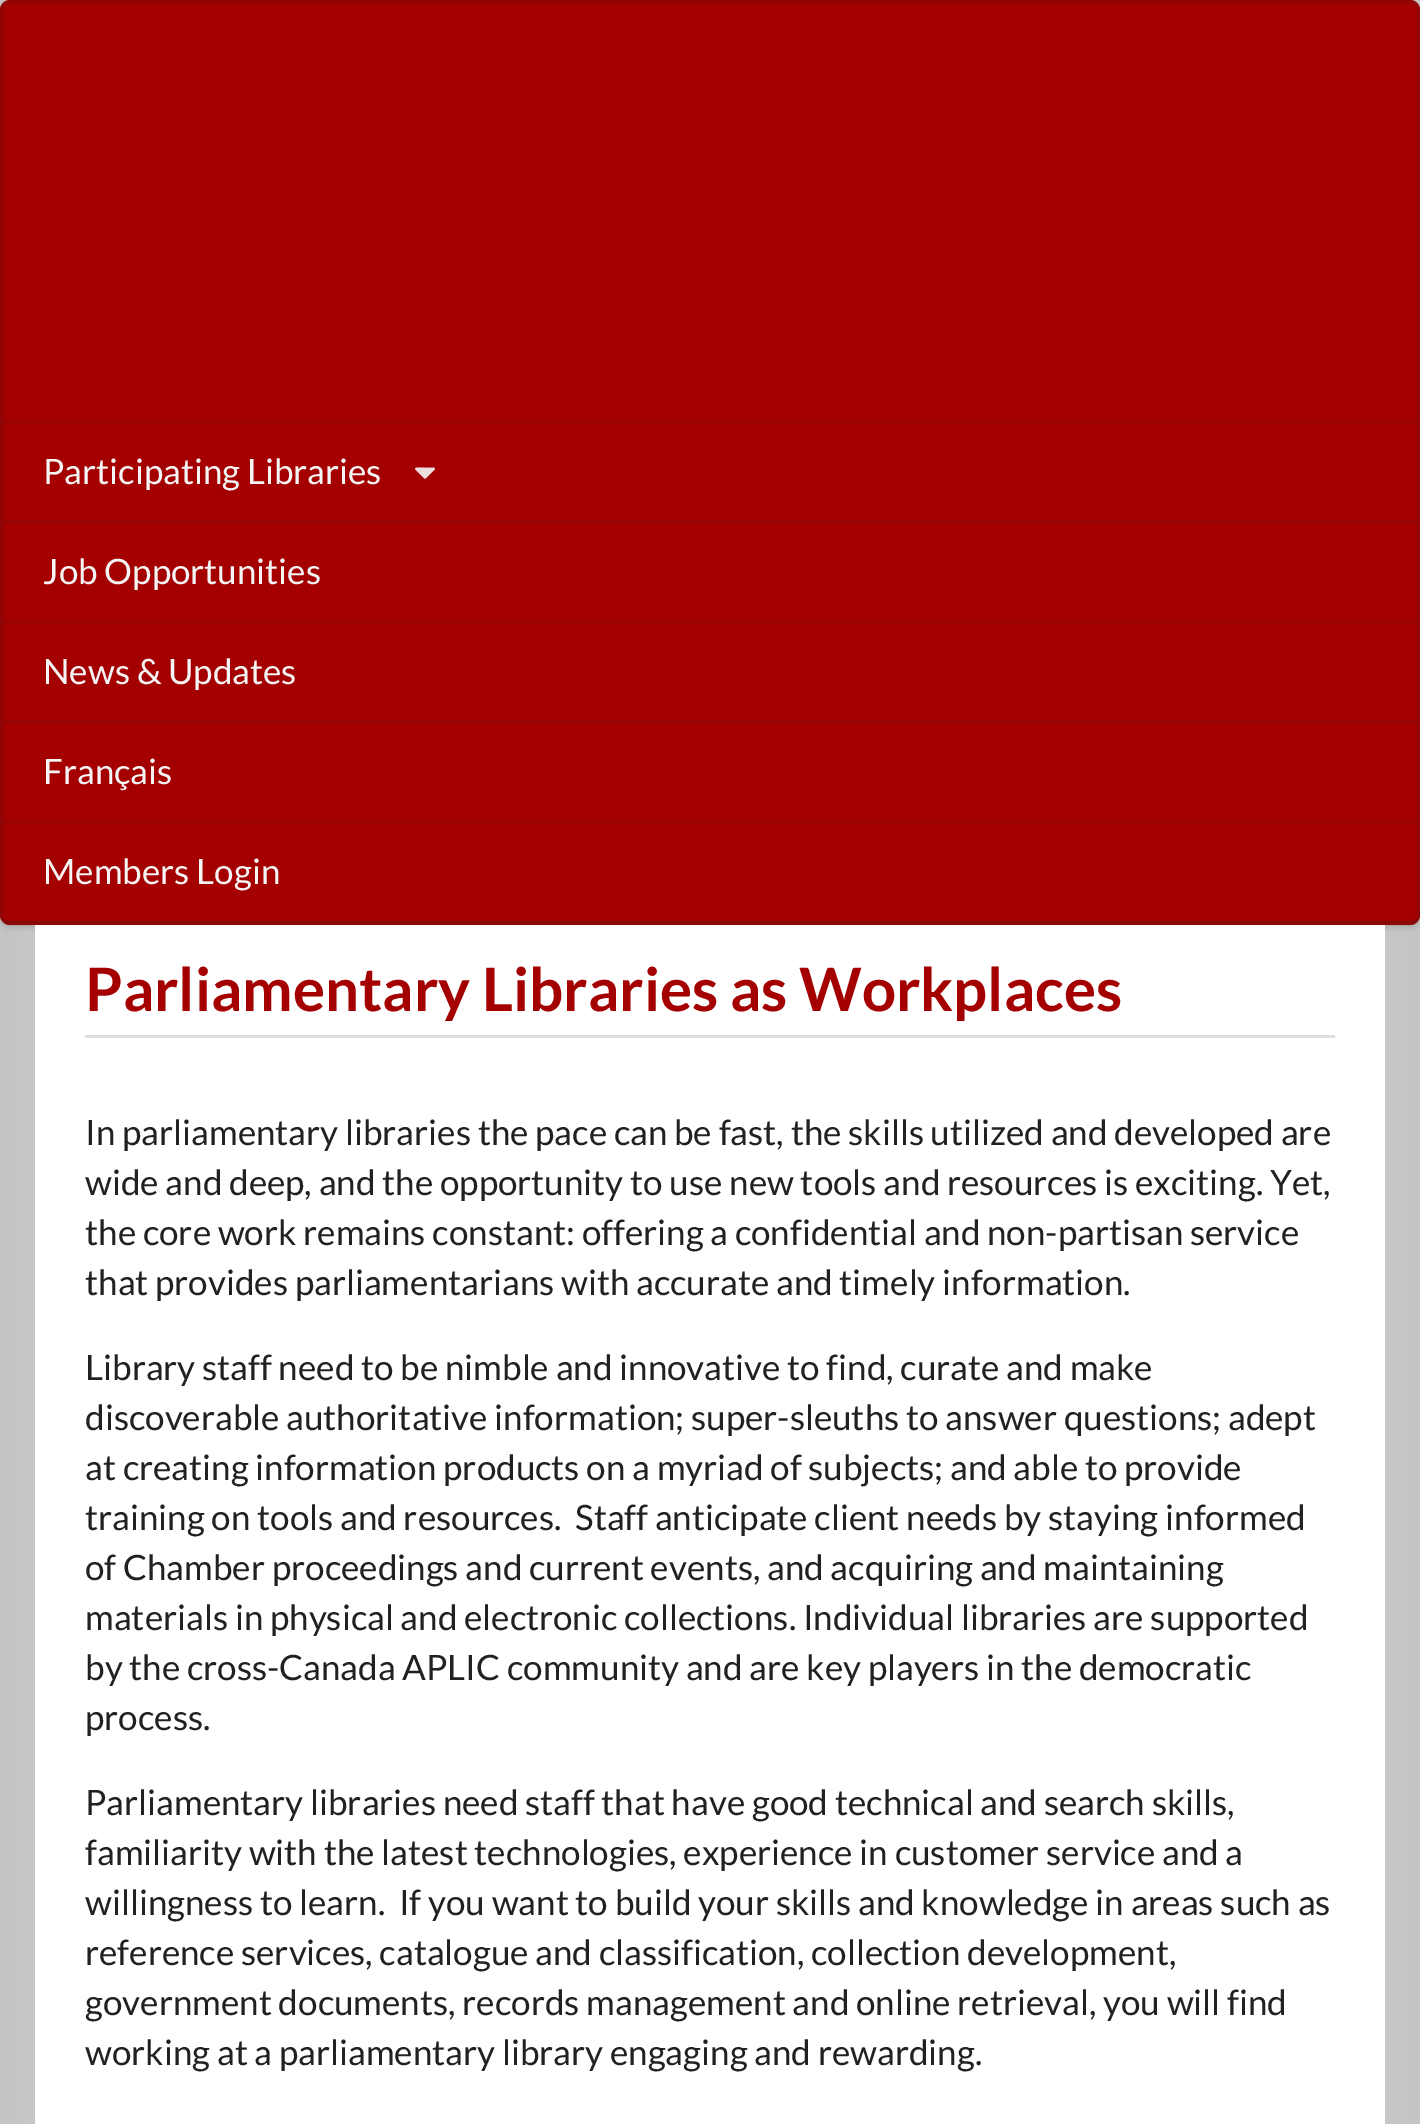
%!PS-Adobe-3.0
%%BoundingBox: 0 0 1420 2124
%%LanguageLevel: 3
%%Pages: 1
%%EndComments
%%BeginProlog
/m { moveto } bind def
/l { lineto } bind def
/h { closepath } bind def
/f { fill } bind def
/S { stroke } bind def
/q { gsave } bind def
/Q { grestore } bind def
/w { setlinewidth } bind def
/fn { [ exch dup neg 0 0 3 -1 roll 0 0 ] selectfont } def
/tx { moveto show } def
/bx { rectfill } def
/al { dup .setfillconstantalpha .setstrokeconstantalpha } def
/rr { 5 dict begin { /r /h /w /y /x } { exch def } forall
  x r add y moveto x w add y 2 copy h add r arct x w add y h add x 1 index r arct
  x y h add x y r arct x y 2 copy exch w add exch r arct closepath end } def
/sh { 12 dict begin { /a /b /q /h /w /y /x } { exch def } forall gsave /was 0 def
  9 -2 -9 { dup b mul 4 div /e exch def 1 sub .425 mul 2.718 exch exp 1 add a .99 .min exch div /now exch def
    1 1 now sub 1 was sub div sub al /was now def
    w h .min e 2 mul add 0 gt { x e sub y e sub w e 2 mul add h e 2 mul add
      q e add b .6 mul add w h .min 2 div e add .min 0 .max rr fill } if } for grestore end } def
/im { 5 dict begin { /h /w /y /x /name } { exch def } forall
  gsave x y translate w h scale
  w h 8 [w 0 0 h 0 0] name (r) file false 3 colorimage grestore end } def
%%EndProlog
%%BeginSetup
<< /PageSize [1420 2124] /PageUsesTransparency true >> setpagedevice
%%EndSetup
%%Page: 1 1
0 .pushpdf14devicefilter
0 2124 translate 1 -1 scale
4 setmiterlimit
1 setgray
0 0 1420 2124 bx
q 0 0 m 1420 0 l 1420 2124 l 0 2124 l h clip newpath
<< /ShadingType 2 /ColorSpace /DeviceRGB /Coords [0 1063 1420 1063] /Extend [true true] /Function << /FunctionType 3 /Domain [0 1] /Functions [<< /FunctionType 2 /Domain [0 1] /C0 [0.769 0.769 0.769] /C1 [0.929 0.929 0.929] /N 1 >> << /FunctionType 2 /Domain [0 1] /C0 [0.929 0.929 0.929] /C1 [0.949 0.949 0.949] /N 1 >> << /FunctionType 2 /Domain [0 1] /C0 [0.949 0.949 0.949] /C1 [0.929 0.929 0.929] /N 1 >> << /FunctionType 2 /Domain [0 1] /C0 [0.929 0.929 0.929] /C1 [0.769 0.769 0.769] /N 1 >>] /Bounds [0.24 0.47 0.76] /Encode [0 1 0 1 0 1 0 1] >> >> shfill Q
0.133 0.141 0.149 setrgbcolor
0 3 1420 925 10 2.5 0.15 sh
0.643 0 0 setrgbcolor
0 0 1420 925 10 rr f
0.15 al
0.133 0.141 0.149 setrgbcolor
3 w
1.5 1.5 1417 922 8.5 rr S
0.1 al
3 420 1415 3 bx
/Lato-Regular 35 fn
1 al
0.961 setgray
(Participating Libraries) 43 484 tx
(image0.raw) 415 467 20 12 im
0.1 al
0.133 0.141 0.149 setrgbcolor
3 520 1415 3 bx
1 al
0.961 setgray
(Job Opportunities) 43 584 tx
0.1 al
0.133 0.141 0.149 setrgbcolor
3 620 1415 3 bx
1 al
0.961 setgray
(News & Updates) 43 684 tx
0.1 al
0.133 0.141 0.149 setrgbcolor
3 720 1415 3 bx
1 al
0.961 setgray
(Français) 43 784 tx
0.1 al
0.133 0.141 0.149 setrgbcolor
3 820 1415 3 bx
1 al
0.961 setgray
(Members Login) 43 884 tx
0.1 al
0.133 0.141 0.149 setrgbcolor
3 920 1415 3 bx
1 al
1 setgray
35 925 1350 1199 bx
0.871 setgray
85 1035 1250 3 bx
/Lato-Bold 60 fn
0.643 0 0 setrgbcolor
(Parliamentary Libraries as Workplaces) 85 1011 tx
/Lato-Regular 35 fn
0.129 setgray
(In parliamentary libraries the pace can be fast, the skills utilized and developed are) 85 1145 tx
(wide and deep, and the opportunity to use new tools and resources is exciting. Yet,) 85 1195 tx
(the core work remains constant: offering a confidential and non-partisan service) 85 1245 tx
(that provides parliamentarians with accurate and timely information.) 85 1295 tx
(Library staff need to be nimble and innovative to find, curate and make) 85 1380 tx
(discoverable authoritative information; super-sleuths to answer questions; adept) 85 1430 tx
(at creating information products on a myriad of subjects; and able to provide) 85 1480 tx
(training on tools and resources.) 85 1530 tx
(Staff anticipate client needs by staying informed) 575 1530 tx
(of Chamber proceedings and current events, and acquiring and maintaining) 85 1580 tx
(materials in physical and electronic collections. Individual libraries are supported) 85 1630 tx
(by the cross-Canada APLIC community and are key players in the democratic) 85 1680 tx
(process.) 85 1730 tx
(Parliamentary libraries need staff that have good technical and search skills,) 85 1815 tx
(familiarity with the latest technologies, experience in customer service and a) 85 1865 tx
(willingness to learn.  If you want to build your skills and knowledge in areas such as) 85 1915 tx
(reference services, catalogue and classification, collection development,) 85 1965 tx
(government documents, records management and online retrieval, you will find) 85 2015 tx
(working at a parliamentary library engaging and rewarding.) 85 2065 tx
.poppdf14devicefilter showpage
%%EOF
